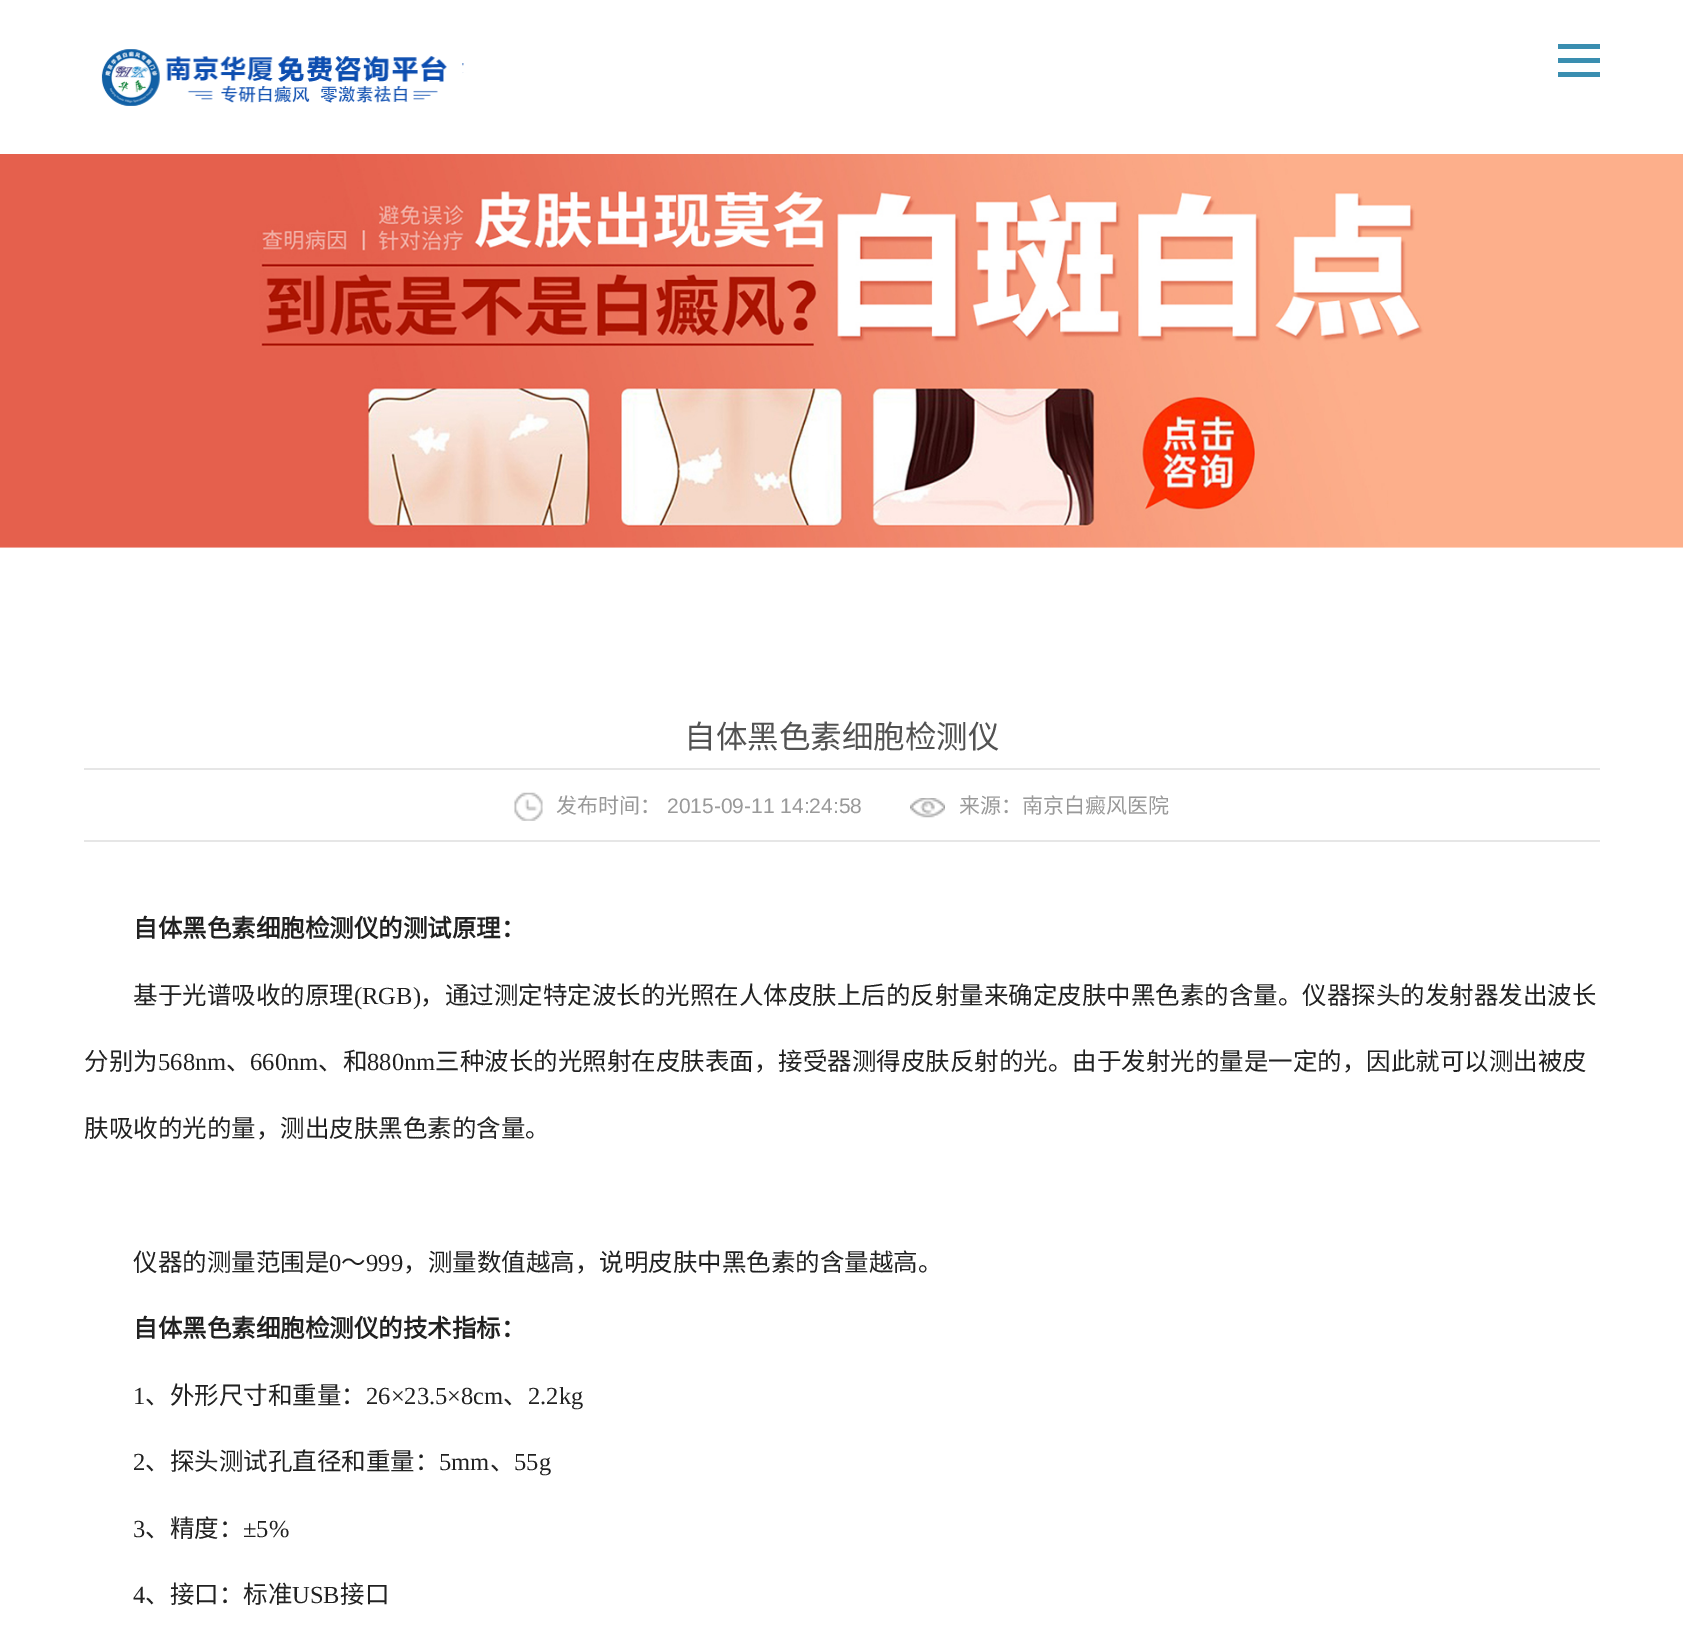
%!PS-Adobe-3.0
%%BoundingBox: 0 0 1683 1625
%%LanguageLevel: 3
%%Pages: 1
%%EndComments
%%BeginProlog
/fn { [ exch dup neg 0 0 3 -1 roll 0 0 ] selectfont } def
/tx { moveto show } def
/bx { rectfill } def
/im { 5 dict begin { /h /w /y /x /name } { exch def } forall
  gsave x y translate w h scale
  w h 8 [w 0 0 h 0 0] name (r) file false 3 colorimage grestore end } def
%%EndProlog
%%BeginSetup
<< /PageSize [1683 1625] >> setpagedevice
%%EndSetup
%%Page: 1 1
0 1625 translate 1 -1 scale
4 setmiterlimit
1 setgray
0 0 1683 1625 bx
(image0.raw) 101 49 363 57 im
0.227 0.557 0.69 setrgbcolor
1558 44 42 5 bx
1558 58 42 5 bx
1558 72 42 5 bx
(image1.raw) 0 154 1683 394 im
/NotoSansCJKSC-Regular 31.5 fn
0.322 setgray
(自体黑色素细胞检测仪) 684 748 tx
0.902 setgray
84 768 1516 2 bx
84 840 1516 2 bx
(image2.raw) 514 792 29 29 im
/NotoSansCJKSC-Regular 21 fn
0.6 setgray
(发布时间：) 556 813 tx
/LiberationSans-Regular 21 fn
(2015-09-11 14:24:58) 667 813 tx
(image3.raw) 910 798 35 20 im
/NotoSansCJKSC-Regular 21 fn
(来源：南京白癜风医院) 959 813 tx
/NotoSansCJKSC-Bold 24.5 fn
0.129 setgray
(自体黑色素细胞检测仪的测试原理：) 133 937 tx
/NotoSansCJKSC-Regular 24.5 fn
(基于光谱吸收的原理) 133 1004 tx
/LiberationSerif-Regular 24.5 fn
(\(RGB\)) 354 1004 tx
/NotoSansCJKSC-Regular 24.5 fn
(，通过测定特定波长的光照在人体皮肤上后的反射量来确定皮肤中黑色素的含量。仪器探头的发射器发出波长) 420 1004 tx
(分别为) 84 1070 tx
/LiberationSerif-Regular 24.5 fn
(568nm) 158 1070 tx
/NotoSansCJKSC-Regular 24.5 fn
(、) 226 1070 tx
/LiberationSerif-Regular 24.5 fn
(660nm) 250 1070 tx
/NotoSansCJKSC-Regular 24.5 fn
(、和) 318 1070 tx
/LiberationSerif-Regular 24.5 fn
(880nm) 367 1070 tx
/NotoSansCJKSC-Regular 24.5 fn
(三种波长的光照射在皮肤表面，接受器测得皮肤反射的光。由于发射光的量是一定的，因此就可以测出被皮) 435 1070 tx
(肤吸收的光的量，测出皮肤黑色素的含量。) 84 1137 tx
(仪器的测量范围是) 133 1271 tx
/LiberationSerif-Regular 24.5 fn
(0) 329 1271 tx
/NotoSansCJKSC-Regular 24.5 fn
(～) 341 1271 tx
/LiberationSerif-Regular 24.5 fn
(999) 366 1271 tx
/NotoSansCJKSC-Regular 24.5 fn
(，测量数值越高，说明皮肤中黑色素的含量越高。) 403 1271 tx
/NotoSansCJKSC-Bold 24.5 fn
(自体黑色素细胞检测仪的技术指标：) 133 1337 tx
/LiberationSerif-Regular 24.5 fn
(1) 133 1404 tx
/NotoSansCJKSC-Regular 24.5 fn
(、外形尺寸和重量：) 145 1404 tx
/LiberationSerif-Regular 24.5 fn
(26×23.5×8cm) 366 1404 tx
/NotoSansCJKSC-Regular 24.5 fn
(、) 503 1404 tx
/LiberationSerif-Regular 24.5 fn
(2.2kg) 528 1404 tx
(2) 133 1470 tx
/NotoSansCJKSC-Regular 24.5 fn
(、探头测试孔直径和重量：) 145 1470 tx
/LiberationSerif-Regular 24.5 fn
(5mm) 439 1470 tx
/NotoSansCJKSC-Regular 24.5 fn
(、) 490 1470 tx
/LiberationSerif-Regular 24.5 fn
(55g) 514 1470 tx
(3) 133 1537 tx
/NotoSansCJKSC-Regular 24.5 fn
(、精度：) 145 1537 tx
/LiberationSerif-Regular 24.5 fn
(±5%) 243 1537 tx
(4) 133 1603 tx
/NotoSansCJKSC-Regular 24.5 fn
(、接口：标准) 145 1603 tx
/LiberationSerif-Regular 24.5 fn
(USB) 292 1603 tx
/NotoSansCJKSC-Regular 24.5 fn
(接口) 340 1603 tx
showpage
%%EOF
